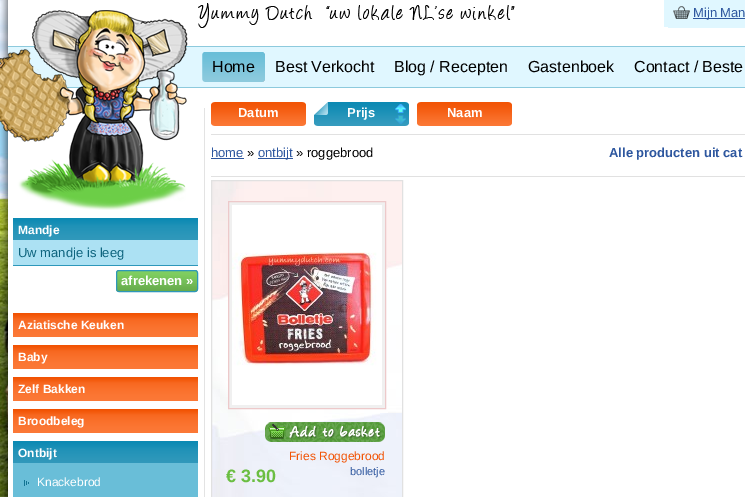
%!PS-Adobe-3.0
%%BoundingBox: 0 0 745 497
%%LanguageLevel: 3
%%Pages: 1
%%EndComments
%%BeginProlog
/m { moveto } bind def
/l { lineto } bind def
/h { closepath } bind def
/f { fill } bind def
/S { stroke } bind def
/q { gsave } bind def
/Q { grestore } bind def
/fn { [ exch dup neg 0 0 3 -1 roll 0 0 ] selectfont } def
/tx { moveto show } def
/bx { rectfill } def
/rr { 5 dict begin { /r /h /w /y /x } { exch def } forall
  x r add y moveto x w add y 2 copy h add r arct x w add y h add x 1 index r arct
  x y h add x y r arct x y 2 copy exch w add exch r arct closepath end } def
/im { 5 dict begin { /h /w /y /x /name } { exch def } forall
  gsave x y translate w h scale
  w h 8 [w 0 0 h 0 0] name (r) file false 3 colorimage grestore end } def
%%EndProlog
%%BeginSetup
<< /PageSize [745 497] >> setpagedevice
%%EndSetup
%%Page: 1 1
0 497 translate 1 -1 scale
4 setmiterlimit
1 setgray
0 0 745 497 bx
(image0.raw) 0 0 8 497 im
(image1.raw) 1 0 7 497 im
0.878 0.969 1 setrgbcolor
8 47 737 40 bx
0.553 0.792 0.867 setrgbcolor
8 46 737 1 bx
61 87 684 1 bx
(image2.raw) 0 10 188 200 im
(image3.raw) 198 3 317 25 im
0.878 0.969 1 setrgbcolor
664 0 4 27 bx
668 0 77 28 bx
(image4.raw) 673 6 17 13 im
0.18 0.341 0.624 setrgbcolor
693 18 52 1 bx
/LiberationSans-Regular 13 fn
(Mijn Man) 693 17 tx
(image5.raw) 262 52 3 30 im
(image6.raw) 202 52 60 30 im
/LiberationSans-Regular 16 fn
0 setgray
(Best Verkocht) 275 72 tx
(Blog / Recepten) 394 72 tx
(Gastenboek) 528 72 tx
(Contact / Beste) 634 72 tx
(Home) 212 72 tx
(image7.raw) 13 218 185 22 im
/LiberationSans-Bold 12 fn
1 setgray
(Mandje) 18 234 tx
0.675 0.882 0.953 setrgbcolor
13 240 185 25 bx
0.18 0.592 0.729 setrgbcolor
13 265 185 1 bx
/LiberationSans-Regular 13 fn
0.059 0.396 0.498 setrgbcolor
(Uw mandje is leeg) 18 257 tx
(image8.raw) 116 270 82 22 im
0.18 0.592 0.729 setrgbcolor
116.5 270.5 81 21 2.5 rr S
/LiberationSans-Bold 13 fn
1 setgray
(afrekenen ») 121 285 tx
(image9.raw) 13 313 185 24 im
/LiberationSans-Bold 12 fn
(Aziatische Keuken) 18 329 tx
(image9.raw) 13 345 185 24 im
(Baby) 18 361 tx
(image9.raw) 13 377 185 24 im
(Zelf Bakken) 18 393 tx
(image9.raw) 13 409 185 24 im
(Broodbeleg) 18 425 tx
(image7.raw) 13 441 185 22 im
(Ontbijt) 18 457 tx
0.412 0.745 0.847 setrgbcolor
13 463 185 34 bx
(image10.raw) 24 480 5 6 im
/LiberationSans-Regular 12 fn
1 setgray
(Knackebrod) 37 486 tx
0.89 setgray
204 108 1 389 bx
0.882 setgray
211 134 534 1 bx
(image11.raw) 211 102 95 24 im
/LiberationSans-Bold 13 fn
1 setgray
(Datum) 238 117 tx
(image12.raw) 314 102 95 24 im
(Prijs) 347 117 tx
(image11.raw) 417 102 95 24 im
(Naam) 447 117 tx
/LiberationSans-Regular 13 fn
0.18 0.341 0.624 setrgbcolor
(home) 211 157 tx
211 158 33 1 bx
0 setgray
(») 247 157 tx
0.18 0.341 0.624 setrgbcolor
258 158 35 1 bx
(ontbijt) 258 157 tx
0 setgray
(» roggebrood) 296 157 tx
/LiberationSans-Bold 13 fn
0.18 0.341 0.624 setrgbcolor
(Alle producten uit cat) 609 157 tx
0.882 setgray
211 176 534 1 bx
(image13.raw) 212 181 190 316 im
211.5 180.5 191 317 rectstroke
0.941 setgray
228.5 201.5 m 385.5 201.5 l 385.5 408.5 l 228.5 408.5 l h q f Q
0.929 0.788 0.792 setrgbcolor
S
(image14.raw) 232 205 150 200 im
(image15.raw) 265 422 120 20 im
/LiberationSans-Bold 18 fn
0.42 0.745 0.259 setrgbcolor
(€ 3.90) 226 482 tx
/LiberationSans-Regular 12 fn
0.949 0.329 0.02 setrgbcolor
(Fries Roggebrood) 289 460 tx
/LiberationSans-Regular 11 fn
0.18 0.341 0.624 setrgbcolor
(bolletje) 350 475 tx
showpage
%%EOF
